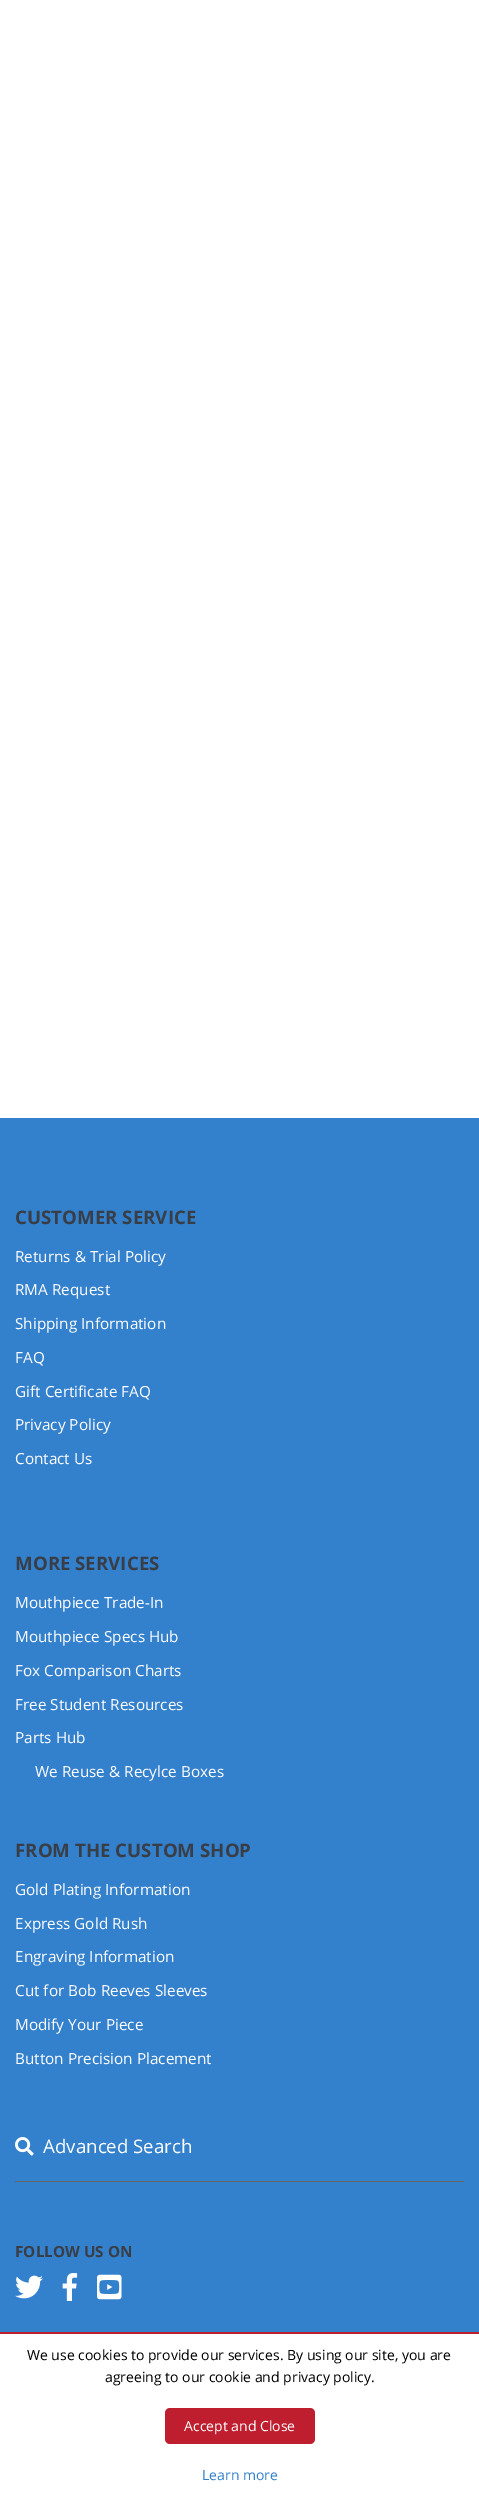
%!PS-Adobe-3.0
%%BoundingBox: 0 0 479 2496
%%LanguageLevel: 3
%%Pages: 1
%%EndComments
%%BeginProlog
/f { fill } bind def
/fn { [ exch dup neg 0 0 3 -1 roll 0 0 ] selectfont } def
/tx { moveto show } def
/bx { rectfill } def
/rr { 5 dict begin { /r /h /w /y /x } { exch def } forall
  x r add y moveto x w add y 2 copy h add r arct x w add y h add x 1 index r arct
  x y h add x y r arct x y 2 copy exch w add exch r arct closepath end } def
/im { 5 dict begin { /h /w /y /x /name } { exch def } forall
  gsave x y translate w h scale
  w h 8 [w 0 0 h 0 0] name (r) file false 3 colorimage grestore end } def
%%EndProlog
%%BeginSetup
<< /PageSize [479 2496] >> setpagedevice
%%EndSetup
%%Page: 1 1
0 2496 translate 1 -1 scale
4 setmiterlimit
1 setgray
0 0 479 2496 bx
0.2 0.502 0.8 setrgbcolor
0 1118 479 1214 bx
/OpenSans-Bold 18.7 fn
0.224 0.243 0.275 setrgbcolor
(CUSTOMER SERVICE) 15 1224 tx
/OpenSans-Regular 15.3 fn
1 setgray
(Returns & Trial Policy) 15 1262 tx
(RMA Request) 15 1295 tx
(Shipping Information) 15 1329 tx
(FAQ) 15 1363 tx
(Gift Certificate FAQ) 15 1397 tx
(Privacy Policy) 15 1430 tx
(Contact Us) 15 1464 tx
/OpenSans-Bold 18.7 fn
0.224 0.243 0.275 setrgbcolor
(MORE SERVICES) 15 1570 tx
/OpenSans-Regular 15.3 fn
1 setgray
(Mouthpiece Trade-In) 15 1608 tx
(Mouthpiece Specs Hub) 15 1642 tx
(Fox Comparison Charts) 15 1676 tx
(Free Student Resources) 15 1710 tx
(Parts Hub) 15 1743 tx
(We Reuse & Recylce Boxes) 35 1777 tx
/OpenSans-Bold 18.7 fn
0.224 0.243 0.275 setrgbcolor
(FROM THE CUSTOM SHOP) 15 1857 tx
/OpenSans-Regular 15.3 fn
1 setgray
(Gold Plating Information) 15 1895 tx
(Express Gold Rush) 15 1929 tx
(Engraving Information) 15 1962 tx
(Cut for Bob Reeves Sleeves) 15 1996 tx
(Modify Your Piece) 15 2030 tx
(Button Precision Placement) 15 2064 tx
(image0.raw) 15 2137 19 19 im
/OpenSans-Regular 18.7 fn
(Advanced Search) 43 2153 tx
0.4 setgray
15 2181 449 1 bx
/OpenSans-Bold 15.3 fn
0.224 0.243 0.275 setrgbcolor
(FOLLOW US ON) 15 2257 tx
(image1.raw) 15 2275 28 24 im
(image2.raw) 62 2273 16 28 im
(image3.raw) 97 2274 25 26 im
0.749 0.118 0.18 setrgbcolor
0 2332 479 2 bx
/OpenSans-Regular 14 fn
0 setgray
(We use cookies to provide our services. By using our site, you are) 27 2360 tx
(agreeing to our cookie and privacy policy.) 105 2382 tx
0.749 0.118 0.18 setrgbcolor
165 2408 150 36 5 rr f
1 setgray
(Accept and Close) 184 2431 tx
0.2 0.502 0.8 setrgbcolor
(Learn more) 202 2480 tx
showpage
%%EOF
